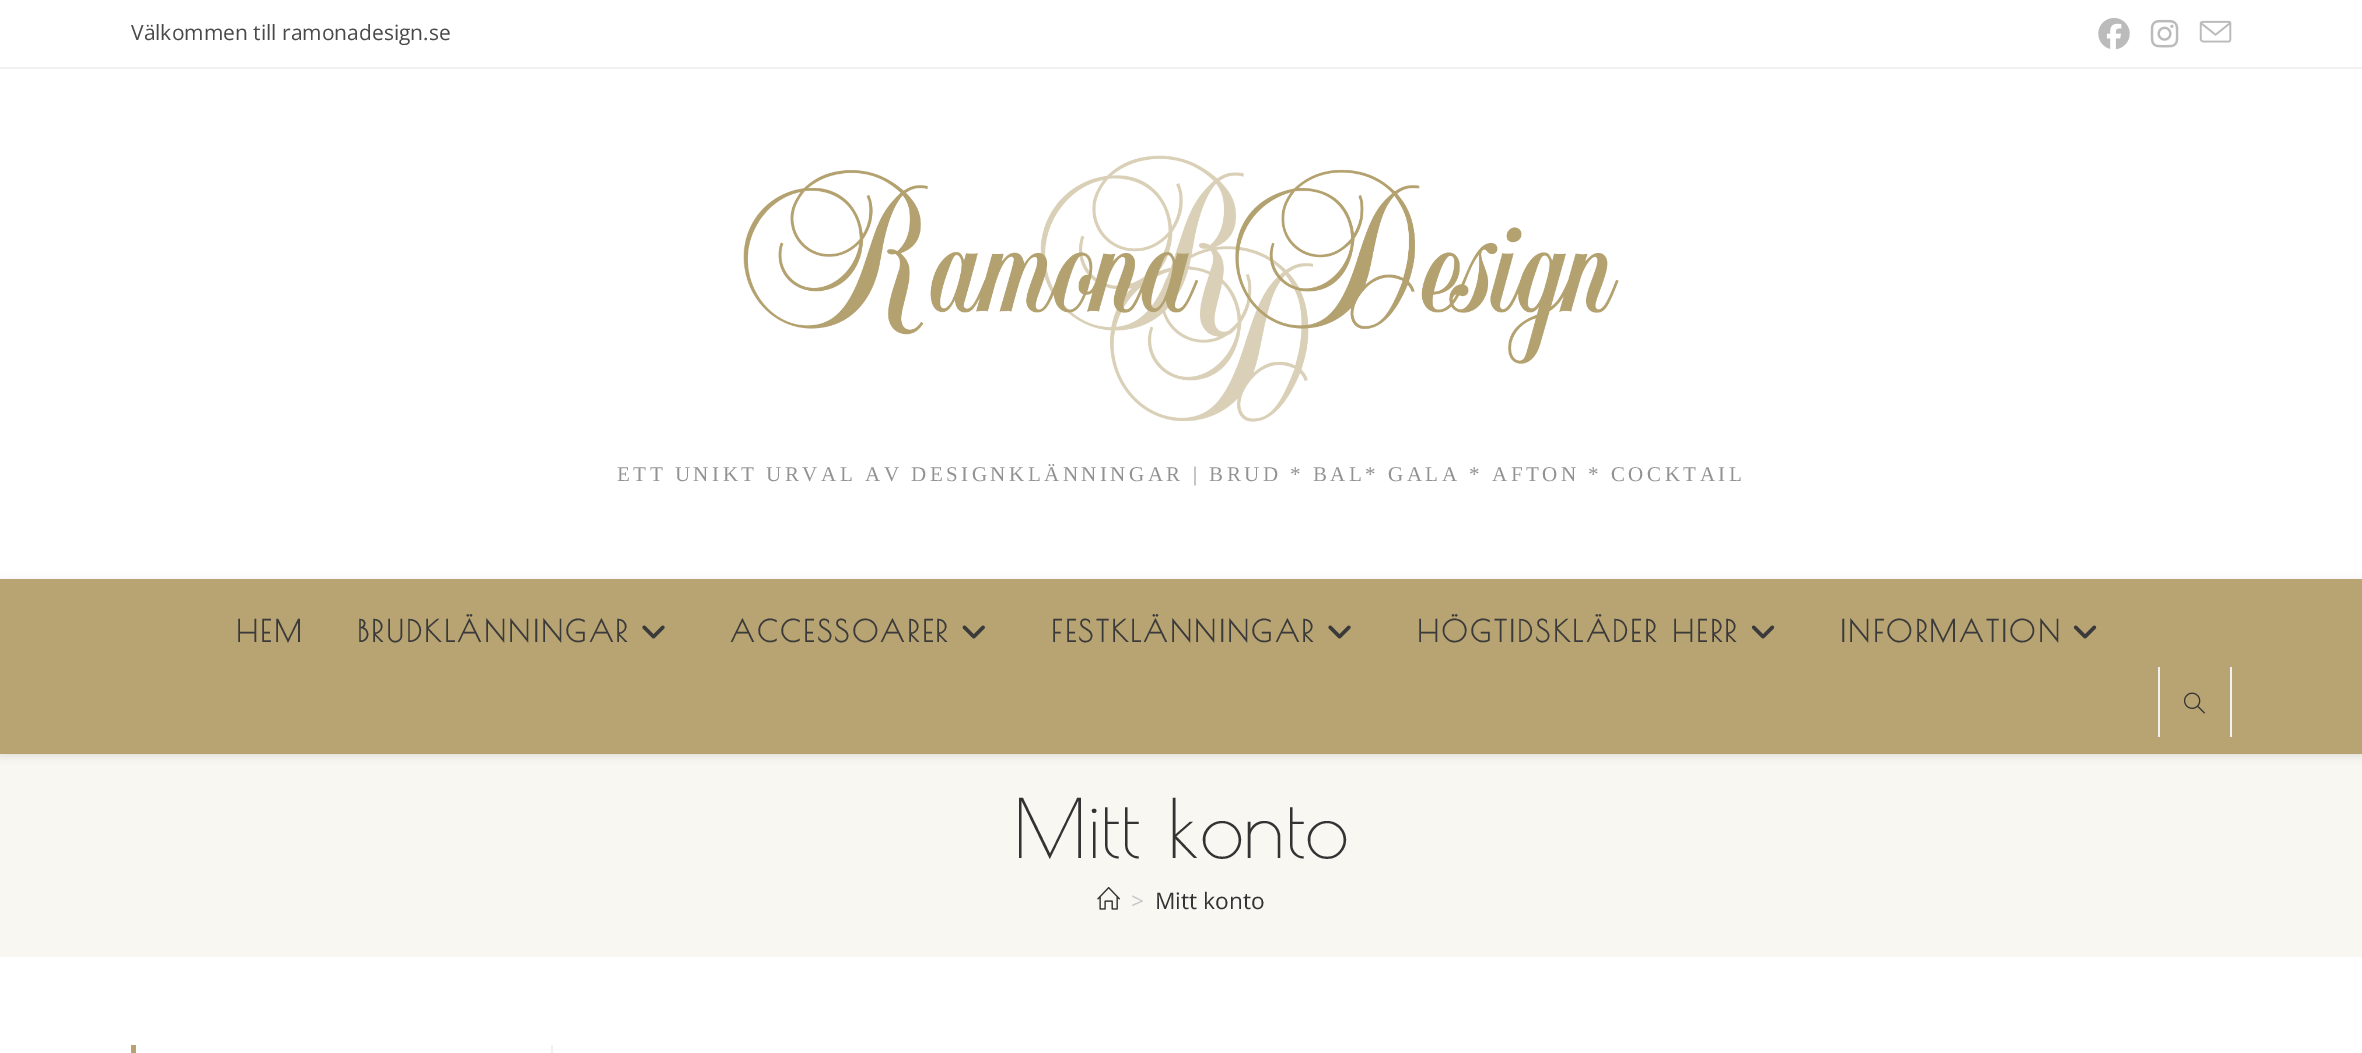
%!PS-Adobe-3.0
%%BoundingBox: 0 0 2362 1053
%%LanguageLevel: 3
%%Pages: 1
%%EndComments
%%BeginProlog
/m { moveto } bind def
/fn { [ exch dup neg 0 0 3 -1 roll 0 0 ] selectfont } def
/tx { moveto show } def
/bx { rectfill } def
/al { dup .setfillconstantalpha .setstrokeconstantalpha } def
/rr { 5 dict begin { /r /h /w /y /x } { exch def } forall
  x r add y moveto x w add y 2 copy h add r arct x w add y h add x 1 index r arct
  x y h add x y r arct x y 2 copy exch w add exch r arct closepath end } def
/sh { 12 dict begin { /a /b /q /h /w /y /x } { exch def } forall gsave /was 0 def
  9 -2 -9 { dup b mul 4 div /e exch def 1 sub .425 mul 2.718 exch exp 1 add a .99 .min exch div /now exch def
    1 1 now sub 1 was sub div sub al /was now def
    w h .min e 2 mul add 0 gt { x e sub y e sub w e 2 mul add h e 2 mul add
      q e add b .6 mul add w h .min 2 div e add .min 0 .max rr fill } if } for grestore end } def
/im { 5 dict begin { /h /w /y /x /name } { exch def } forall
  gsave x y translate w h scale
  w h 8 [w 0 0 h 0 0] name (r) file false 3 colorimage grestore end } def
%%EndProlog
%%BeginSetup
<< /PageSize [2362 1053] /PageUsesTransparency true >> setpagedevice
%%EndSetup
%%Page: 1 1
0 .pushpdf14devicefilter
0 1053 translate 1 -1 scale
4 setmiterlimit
1 setgray
0 0 2362 1053 bx
0.945 setgray
0 67 2362 2 bx
/OpenSans-Regular 21 fn
0.29 setgray
(Välkommen till ramonadesign.se) 131 40 tx
(image0.raw) 2098 18 32 32 im
(image1.raw) 2150 19 29 29 im
(image2.raw) 2199 20 33 23 im
(image3.raw) 743 155 876 267 im
/LiberationSerif-Regular 21 fn
0.573 setgray
617 481 m 3.5 0 (ETT UNIKT URVAL AV DESIGNKLÄNNINGAR | BRUD * BAL* GALA * AFTON * COCKTAIL) ashow
0.976 0.969 0.949 setrgbcolor
0 754 2362 203 bx
0 setgray
0 581 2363 175 0 4.5 0.1 sh
0.722 0.639 0.447 setrgbcolor
0 579 2362 175 bx
/PoiretOne-Bold 29.75 fn
0.227 setgray
236 642 m 2.6 0 (HEM) ashow
357 642 m 2.6 0 (BRUDKLÄNNINGAR) ashow
(image4.raw) 642 625 23 14 im
730 642 m 2.6 0 (ACCESSOARER) ashow
(image5.raw) 962 625 23 14 im
1051 642 m 2.6 0 (FESTKLÄNNINGAR) ashow
(image4.raw) 1328 625 23 14 im
1417 642 m 2.6 0 (HÖGTIDSKLÄDER HERR) ashow
(image6.raw) 1751 625 24 14 im
1840 642 m 2.6 0 (INFORMATION) ashow
(image6.raw) 2073 625 24 14 im
0.945 setgray
2230 667 2 70 bx
2158 667 2 70 bx
(image7.raw) 2184 692 21 22 im
/PoiretOne-Regular 80.5 fn
0.2 setgray
(Mitt konto) 1013 858 tx
(image8.raw) 1097 886 23 24 im
/OpenSans-Regular 22.75 fn
0.776 setgray
(>) 1131 909 tx
0.2 setgray
(Mitt konto) 1155 909 tx
0.722 0.639 0.447 setrgbcolor
131 1045 5 8 bx
0.945 setgray
551 1045 2 8 bx
.poppdf14devicefilter showpage
%%EOF
